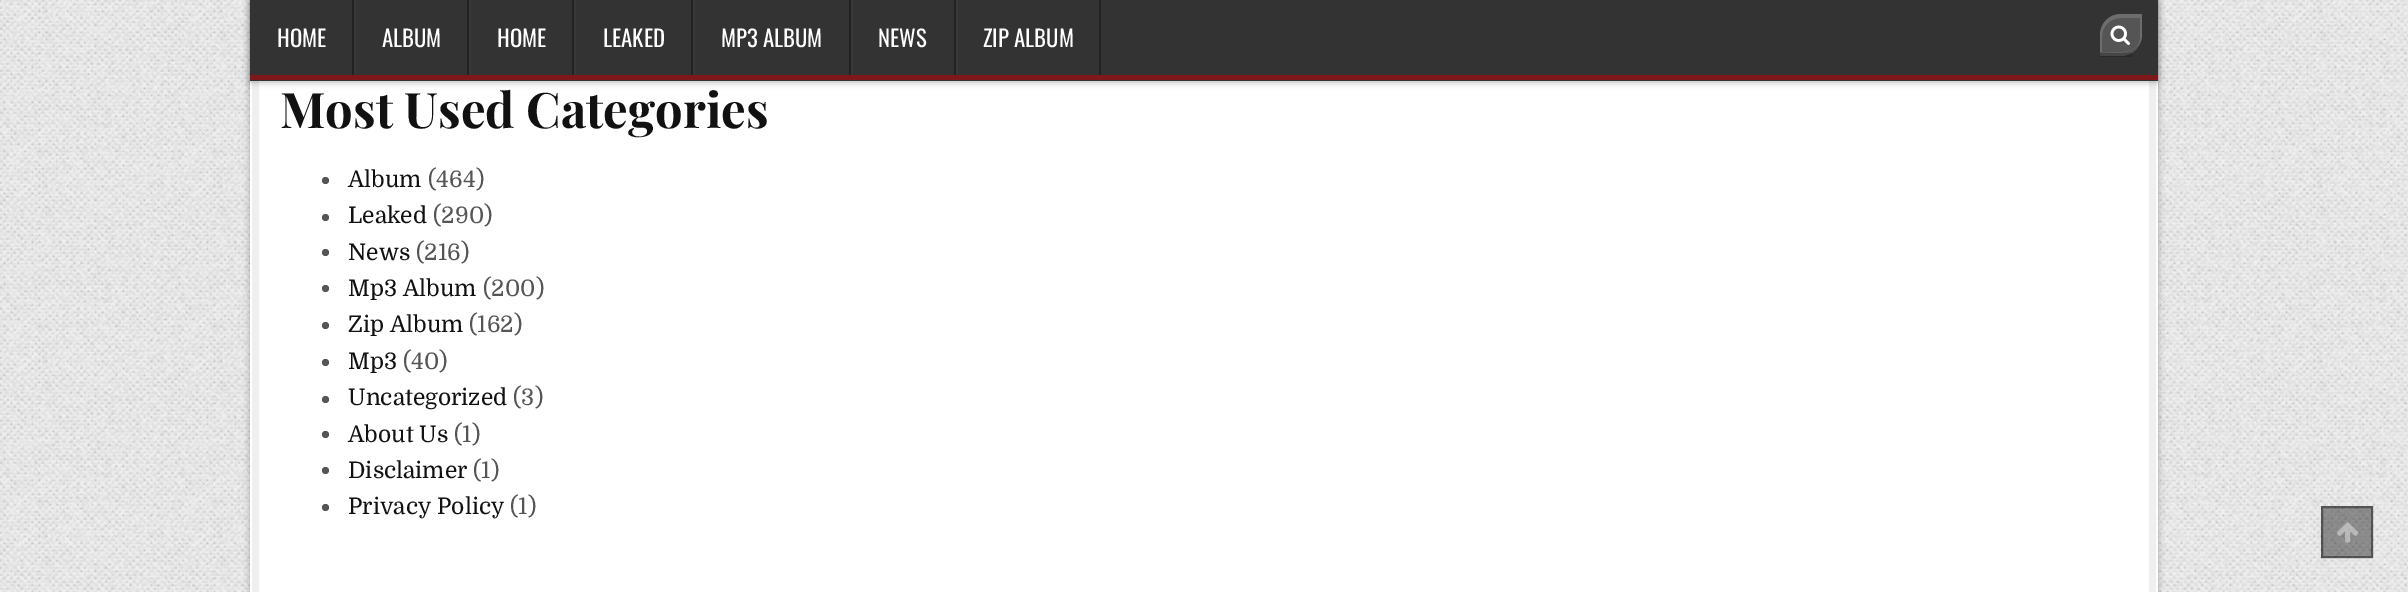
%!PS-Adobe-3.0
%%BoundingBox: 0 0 2408 592
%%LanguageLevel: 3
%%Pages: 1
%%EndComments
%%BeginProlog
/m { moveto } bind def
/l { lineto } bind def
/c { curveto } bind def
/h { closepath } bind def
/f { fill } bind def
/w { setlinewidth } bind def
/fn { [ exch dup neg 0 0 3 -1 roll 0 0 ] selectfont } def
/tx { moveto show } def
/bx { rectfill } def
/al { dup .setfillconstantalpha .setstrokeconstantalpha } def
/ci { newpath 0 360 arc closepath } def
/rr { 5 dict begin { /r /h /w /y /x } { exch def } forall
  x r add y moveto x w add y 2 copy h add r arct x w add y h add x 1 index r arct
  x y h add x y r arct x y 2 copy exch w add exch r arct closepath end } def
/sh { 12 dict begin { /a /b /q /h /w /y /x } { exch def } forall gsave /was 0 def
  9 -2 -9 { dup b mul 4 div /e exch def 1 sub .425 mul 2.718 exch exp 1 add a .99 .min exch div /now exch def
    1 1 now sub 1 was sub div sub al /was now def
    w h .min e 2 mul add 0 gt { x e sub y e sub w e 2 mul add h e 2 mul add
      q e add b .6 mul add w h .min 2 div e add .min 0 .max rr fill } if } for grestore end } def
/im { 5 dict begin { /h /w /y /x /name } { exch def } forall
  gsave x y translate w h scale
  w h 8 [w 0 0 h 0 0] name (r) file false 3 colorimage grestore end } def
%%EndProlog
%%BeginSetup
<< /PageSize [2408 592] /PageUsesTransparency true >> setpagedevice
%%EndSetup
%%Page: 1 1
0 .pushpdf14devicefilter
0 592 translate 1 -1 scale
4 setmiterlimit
1 setgray
0 0 2408 592 bx
(image0.raw) 0 0 2408 592 im
0 setgray
250 -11 1908 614 0 3.5 0.3 sh
1 setgray
250 81 1908 511 bx
0.937 setgray
7 w
255.5 -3.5 1897 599 rectstroke
0 setgray
250 2 1908 80 0 3.5 0.3 sh
0.2 setgray
250 0 1908 81 bx
0.498 0.094 0.106 setrgbcolor
250 75 1908 5 bx
0.133 setgray
352 0 2 75 bx
/Oswald-Regular 22.75 fn
1 setgray
(HOME) 277 47 tx
0.133 setgray
467 0 2 75 bx
0.22 setgray
354 0 2 75 bx
1 setgray
(ALBUM) 382 47 tx
0.133 setgray
572 0 2 75 bx
0.22 setgray
469 0 2 75 bx
1 setgray
(HOME) 497 47 tx
0.133 setgray
691 0 2 75 bx
0.22 setgray
574 0 2 75 bx
1 setgray
(LEAKED) 603 47 tx
0.133 setgray
849 0 2 75 bx
0.22 setgray
693 0 2 75 bx
1 setgray
(MP3 ALBUM) 721 47 tx
0.133 setgray
954 0 2 75 bx
0.22 setgray
851 0 2 75 bx
1 setgray
(NEWS) 878 47 tx
0.133 setgray
1099 0 2 75 bx
0.22 setgray
956 0 2 75 bx
1 setgray
(ZIP ALBUM) 983 47 tx
0.333 setgray
2121 14 m 2142 14 l 2142 35 l 2142 46.5 2132.5 56 2121 56 c 2100 56 l 2100 35 l 2100 23.5 2109.5 14 2121 14 c h f
0.14 al
1 setgray
2121 14 m 2109 14 2100 23 2100 35 c 2100 52 l 2121 52 l 2133 52 2142 45 2142 35 c 2142 14 l h 2121 18 m 2110 18 2102 26 2102 37 c 2102 52 l 2114 52 2136 56 2140 40 c 2140 18 l h eofill
0.18 al
0 setgray
2100 53 32 4 bx
1 al
(image1.raw) 2110 25 20 20 im
/PlayfairDisplay-Bold 49 fn
0.067 setgray
(Most Used Categories) 280 128 tx
0.333 setgray
325.5 180.5 3.5 ci f
/Domine-Regular 22.75 fn
0.067 setgray
(Album) 348 187 tx
0.333 setgray
(\(464\)) 428 187 tx
325.5 217.5 3.5 ci f
0.067 setgray
(Leaked) 348 223 tx
0.333 setgray
(\(290\)) 433 223 tx
325.5 252.5 3.5 ci f
0.067 setgray
(News) 348 260 tx
0.333 setgray
(\(216\)) 416 260 tx
325.5 288.5 3.5 ci f
0.067 setgray
(Mp3 Album) 348 296 tx
0.333 setgray
(\(200\)) 483 296 tx
325.5 325.5 3.5 ci f
0.067 setgray
(Zip Album) 348 332 tx
0.333 setgray
(\(162\)) 469 332 tx
325.5 362.5 3.5 ci f
0.067 setgray
(Mp3) 348 369 tx
0.333 setgray
(\(40\)) 403 369 tx
325.5 399.5 3.5 ci f
0.067 setgray
(Uncategorized) 348 405 tx
0.333 setgray
(\(3\)) 513 405 tx
325.5 434.5 3.5 ci f
0.067 setgray
(About Us) 348 442 tx
0.333 setgray
(\(1\)) 454 442 tx
325.5 470.5 3.5 ci f
0.067 setgray
(Disclaimer) 348 478 tx
0.333 setgray
(\(1\)) 473 478 tx
325.5 507.5 3.5 ci f
0.067 setgray
(Privacy Policy) 348 514 tx
0.333 setgray
(\(1\)) 510 514 tx
0.4 al
0 setgray
2321 506 52 52 bx
2 w
2322 507 50 50 rectstroke
1 al
(image2.raw) 2337 522 22 21 im
.poppdf14devicefilter showpage
%%EOF
